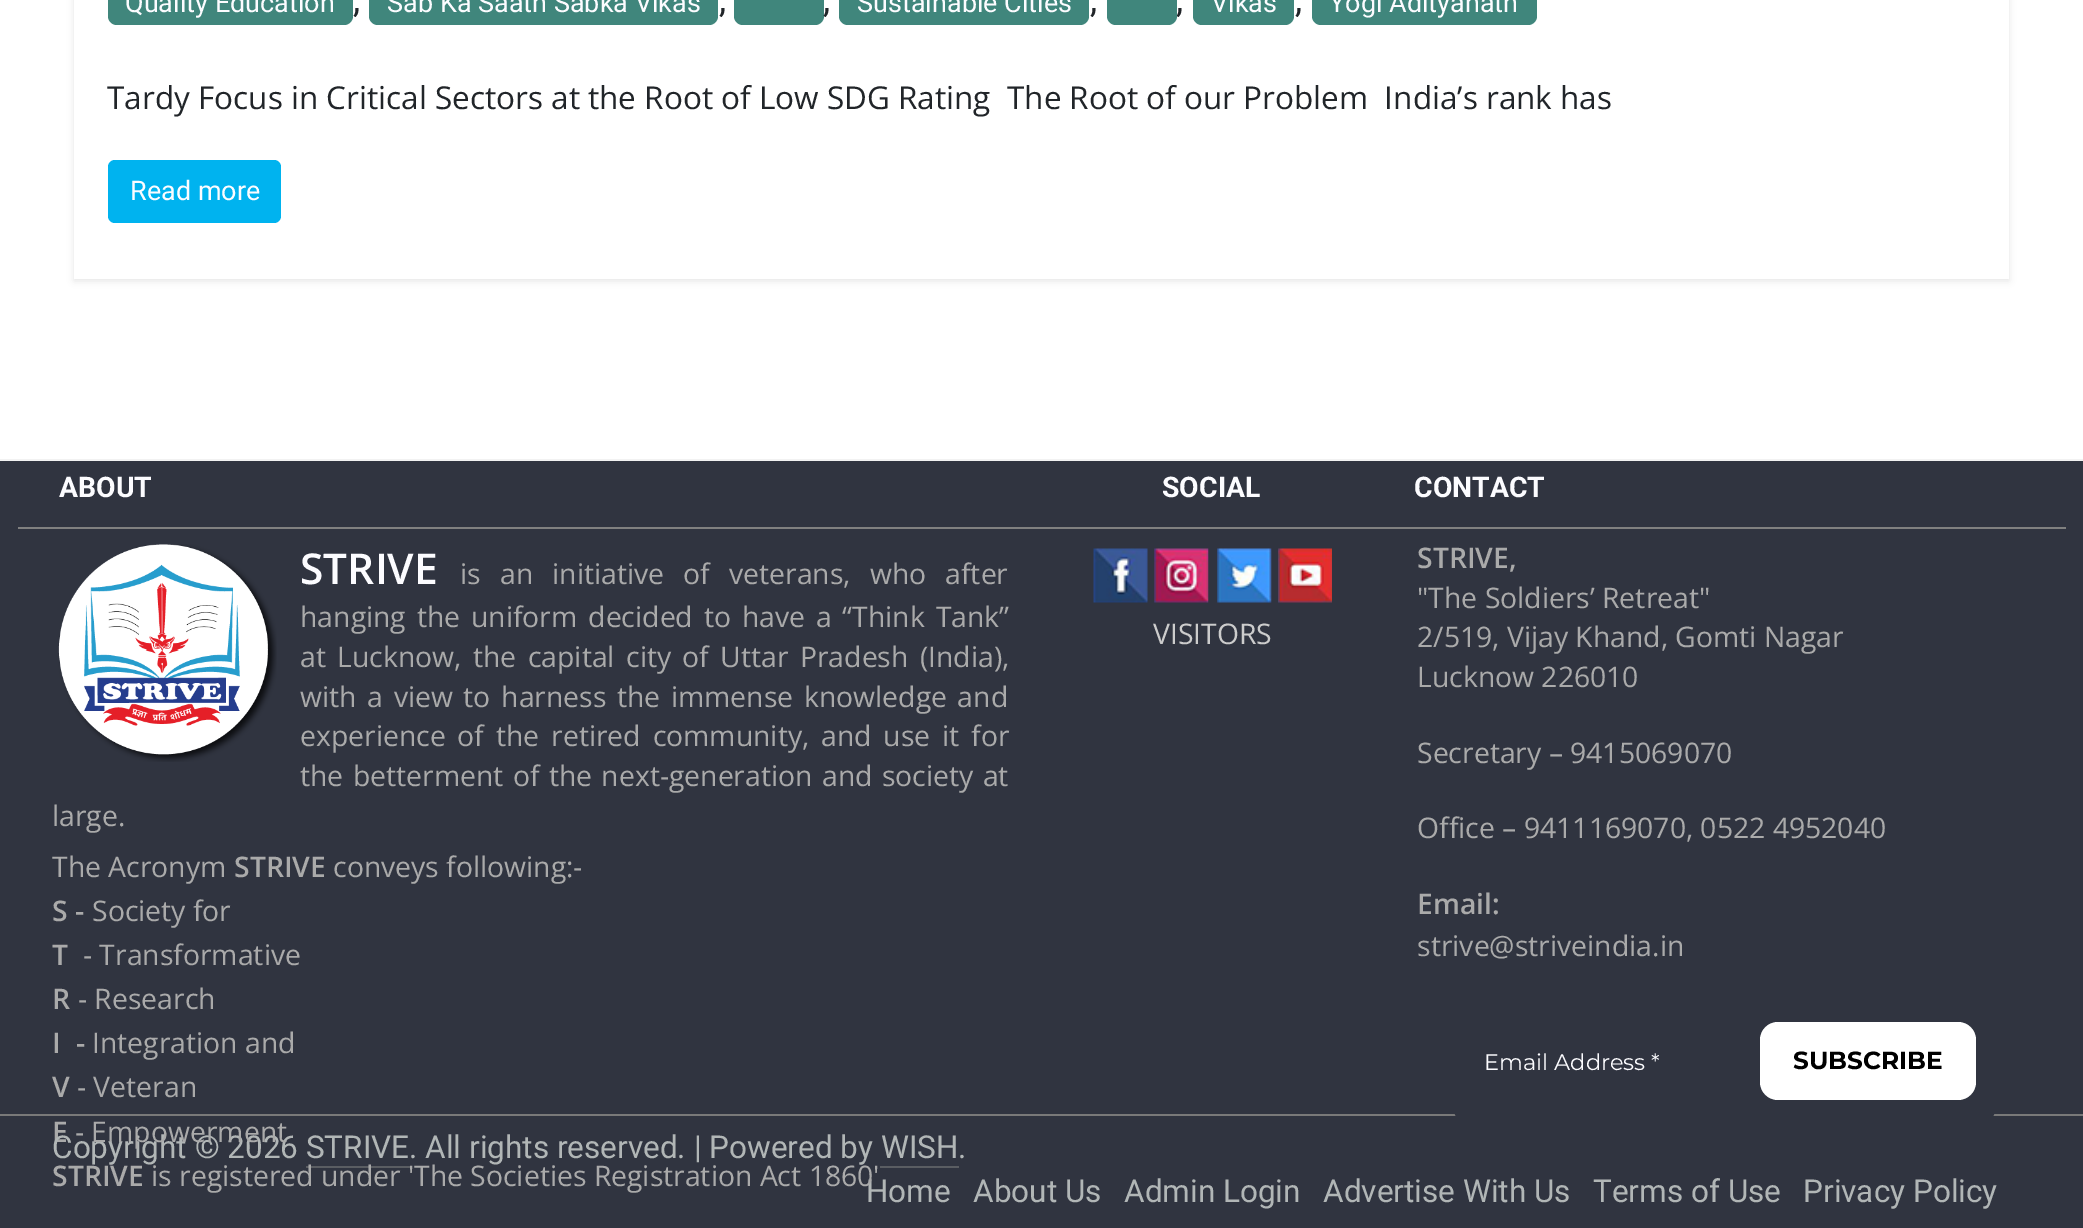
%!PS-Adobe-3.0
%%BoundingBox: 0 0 2083 1228
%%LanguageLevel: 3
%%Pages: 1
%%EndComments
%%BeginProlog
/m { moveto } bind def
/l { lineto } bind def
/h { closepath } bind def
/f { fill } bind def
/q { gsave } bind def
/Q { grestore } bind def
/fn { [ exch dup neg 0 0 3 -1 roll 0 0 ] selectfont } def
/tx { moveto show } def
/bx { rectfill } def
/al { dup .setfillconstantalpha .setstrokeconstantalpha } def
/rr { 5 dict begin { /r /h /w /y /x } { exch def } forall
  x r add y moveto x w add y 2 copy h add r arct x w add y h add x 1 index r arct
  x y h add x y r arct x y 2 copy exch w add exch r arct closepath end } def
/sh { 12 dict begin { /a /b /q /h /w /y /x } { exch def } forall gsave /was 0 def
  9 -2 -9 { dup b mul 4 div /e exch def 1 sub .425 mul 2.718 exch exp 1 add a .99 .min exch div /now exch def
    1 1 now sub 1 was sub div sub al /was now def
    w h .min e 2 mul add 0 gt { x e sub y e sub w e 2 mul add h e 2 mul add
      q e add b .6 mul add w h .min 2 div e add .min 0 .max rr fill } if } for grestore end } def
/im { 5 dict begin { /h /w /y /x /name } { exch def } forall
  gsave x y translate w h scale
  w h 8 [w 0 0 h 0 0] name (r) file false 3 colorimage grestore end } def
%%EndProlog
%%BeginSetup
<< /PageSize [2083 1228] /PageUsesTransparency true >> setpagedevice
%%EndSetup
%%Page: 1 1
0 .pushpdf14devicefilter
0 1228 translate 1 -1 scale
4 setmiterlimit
1 setgray
0 0 2083 1228 bx
q
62 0 m 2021 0 l 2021 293 l 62 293 l h 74 -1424 m 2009 -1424 l 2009 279 l 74 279 l h eoclip newpath
0 setgray
74 -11 1935 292 0 3.5 0.1 sh
Q
0.251 0.525 0.486 setrgbcolor
108 -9 245 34 9 rr f
/Roboto-Regular 27 fn
0.988 0.988 1 setrgbcolor
(Quality Education) 125 12 tx
/Roboto-Regular 36 fn
0.129 0.145 0.161 setrgbcolor
(,) 353 12 tx
0.251 0.525 0.486 setrgbcolor
369 -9 349 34 9 rr f
/Roboto-Regular 27 fn
0.988 0.988 1 setrgbcolor
(Sab Ka Saath Sabka Vikas) 387 12 tx
/Roboto-Regular 36 fn
0.129 0.145 0.161 setrgbcolor
(,) 719 12 tx
0.251 0.525 0.486 setrgbcolor
734 -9 90 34 9 rr f
0.129 0.145 0.161 setrgbcolor
(,) 823 12 tx
0.251 0.525 0.486 setrgbcolor
839 -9 250 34 9 rr f
/Roboto-Regular 27 fn
0.988 0.988 1 setrgbcolor
(Sustainable Cities) 857 12 tx
/Roboto-Regular 36 fn
0.129 0.145 0.161 setrgbcolor
(,) 1090 12 tx
(,) 1176 12 tx
0.251 0.525 0.486 setrgbcolor
1107 -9 70 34 9 rr f
1193 -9 101 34 9 rr f
/Roboto-Regular 27 fn
0.988 0.988 1 setrgbcolor
(Vikas) 1211 12 tx
/Roboto-Regular 36 fn
0.129 0.145 0.161 setrgbcolor
(,) 1295 12 tx
0.251 0.525 0.486 setrgbcolor
1312 -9 225 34 9 rr f
/Roboto-Regular 27 fn
0.988 0.988 1 setrgbcolor
(Yogi Adityanath) 1329 12 tx
/OpenSans-Regular 31.5 fn
0.129 0.145 0.161 setrgbcolor
(Tardy Focus in Critical Sectors at the Root of Low SDG Rating  The Root of our Problem  India’s rank has) 107 109 tx
0 0.702 0.937 setrgbcolor
108 160 173 63 7 rr f
/Roboto-Regular 27 fn
0.988 0.988 1 setrgbcolor
(Read more) 130 200 tx
0.188 0.204 0.251 setrgbcolor
0 461 2083 767 bx
0.949 setgray
0 459 2083 2 bx
0.502 setgray
18 527 2048 2 bx
/Roboto-Bold 28.35 fn
0.988 0.988 1 setrgbcolor
(ABOUT) 59 497 tx
(SOCIAL) 1162 497 tx
(CONTACT) 1414 497 tx
(image0.raw) 58 544 219 218 im
/OpenSans-SemiBold 42.5 fn
(STRIVE) 300 584 tx
/OpenSans-Regular 28.35 fn
0.667 setgray
460 584 m 11.75 0 32 (is an initiative of veterans, who after) widthshow
300 627 m 3.5 0 32 (hanging the uniform decided to have a “Think Tank”) widthshow
300 667 m 4 0 32 (at Lucknow, the capital city of Uttar Pradesh \(India\),) widthshow
300 707 m 3.25 0 32 (with a view to harness the immense knowledge and) widthshow
300 746 m 4.5 0 32 (experience of the retired community, and use it for) widthshow
300 786 m 2 0 32 (the betterment of the next-generation and society at) widthshow
(large.) 52 826 tx
(The Acronym) 52 877 tx
/OpenSans-SemiBold 28.35 fn
(STRIVE) 234 877 tx
/OpenSans-Regular 28.35 fn
(conveys following:-) 333 877 tx
/OpenSans-SemiBold 28.35 fn
(S -) 52 921 tx
/OpenSans-Regular 28.35 fn
(Society for) 92 921 tx
/OpenSans-SemiBold 28.35 fn
(T) 52 965 tx
/OpenSans-Regular 28.35 fn
(- Transformative) 83 965 tx
/OpenSans-SemiBold 28.35 fn
(R) 52 1009 tx
/OpenSans-Regular 28.35 fn
(- Research) 78 1009 tx
/OpenSans-SemiBold 28.35 fn
(I) 52 1053 tx
(-) 76 1053 tx
/OpenSans-Regular 28.35 fn
(Integration and) 92 1053 tx
/OpenSans-SemiBold 28.35 fn
(V) 52 1097 tx
/OpenSans-Regular 28.35 fn
(- Veteran) 77 1097 tx
/OpenSans-SemiBold 28.35 fn
(E) 52 1142 tx
/Roboto-Regular 31.5 fn
0.694 0.714 0.714 setrgbcolor
(Copyright © 2026 STRIVE. All rights reserved. | Powered by WISH.) 52 1158 tx
/OpenSans-Regular 28.35 fn
0.667 setgray
(- Empowerment) 75 1142 tx
/OpenSans-SemiBold 28.35 fn
(STRIVE) 52 1186 tx
0.353 0.365 0.384 setrgbcolor
306 1166 104 2 bx
/Roboto-Regular 31.5 fn
0.694 0.714 0.714 setrgbcolor
(Home) 866 1202 tx
/OpenSans-Regular 28.35 fn
0.667 setgray
(is registered under 'The Societies Registration Act 1860') 151 1186 tx
(image1.raw) 1093 548 55 55 im
(image2.raw) 1154 548 55 55 im
(image3.raw) 1217 548 55 55 im
(image4.raw) 1278 548 54 55 im
0.8 setgray
(VISITORS) 1153 644 tx
/OpenSans-SemiBold 28.35 fn
0.667 setgray
(STRIVE,) 1417 568 tx
/OpenSans-Regular 28.35 fn
("The Soldiers’ Retreat") 1417 608 tx
(2/519, Vijay Khand, Gomti Nagar) 1417 647 tx
(Lucknow 226010) 1417 687 tx
(Secretary – 9415069070) 1417 763 tx
(Office – 9411169070, 0522 4952040) 1417 838 tx
/OpenSans-SemiBold 28.35 fn
(Email:) 1417 914 tx
/OpenSans-Regular 28.35 fn
(strive@striveindia.in) 1417 956 tx
0.475 setgray
0 1114 2083 2 bx
0.188 0.204 0.251 setrgbcolor
1451 1006 547 135 45 rr f
/Montserrat-Regular 22.5 fn
0.988 0.988 1 setrgbcolor
(Email Address *) 1484 1070 tx
1 setgray
1760 1022 216 78 18 rr f
/Montserrat-Bold 24.75 fn
0 setgray
(SUBSCRIBE) 1793 1069 tx
0.353 0.365 0.384 setrgbcolor
880 1166 79 2 bx
/Roboto-Regular 31.5 fn
0.694 0.714 0.714 setrgbcolor
(About Us) 973 1202 tx
(Admin Login) 1124 1202 tx
(Advertise With Us) 1323 1202 tx
(Terms of Use) 1593 1202 tx
(Privacy Policy) 1803 1202 tx
.poppdf14devicefilter showpage
%%EOF
